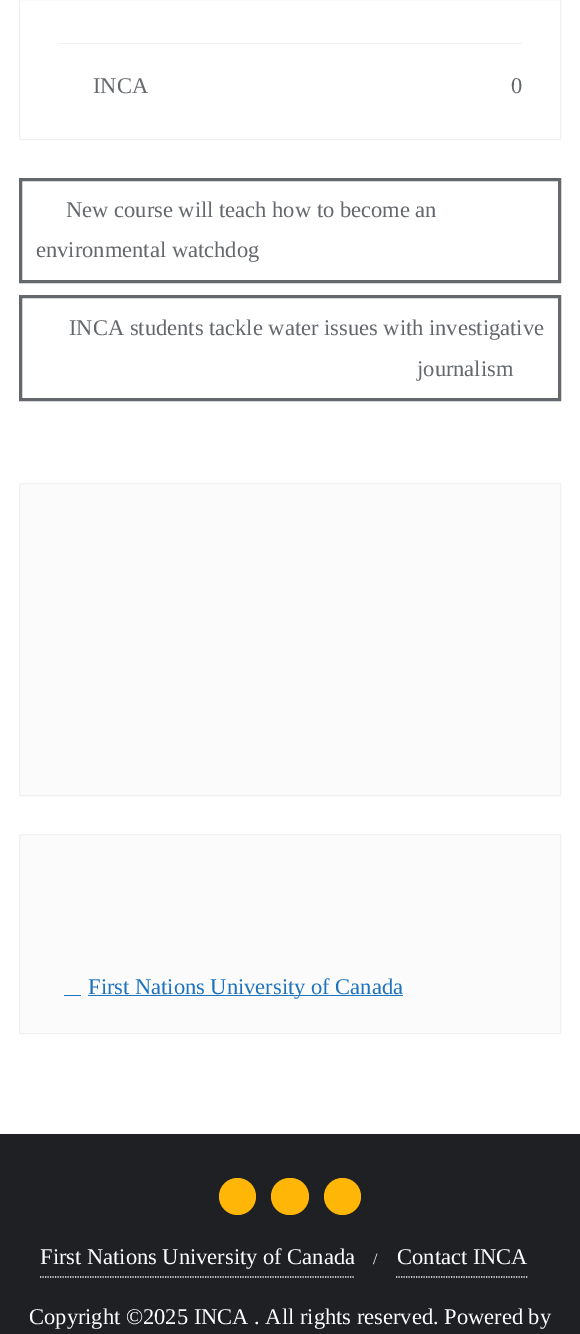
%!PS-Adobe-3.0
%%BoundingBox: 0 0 580 1334
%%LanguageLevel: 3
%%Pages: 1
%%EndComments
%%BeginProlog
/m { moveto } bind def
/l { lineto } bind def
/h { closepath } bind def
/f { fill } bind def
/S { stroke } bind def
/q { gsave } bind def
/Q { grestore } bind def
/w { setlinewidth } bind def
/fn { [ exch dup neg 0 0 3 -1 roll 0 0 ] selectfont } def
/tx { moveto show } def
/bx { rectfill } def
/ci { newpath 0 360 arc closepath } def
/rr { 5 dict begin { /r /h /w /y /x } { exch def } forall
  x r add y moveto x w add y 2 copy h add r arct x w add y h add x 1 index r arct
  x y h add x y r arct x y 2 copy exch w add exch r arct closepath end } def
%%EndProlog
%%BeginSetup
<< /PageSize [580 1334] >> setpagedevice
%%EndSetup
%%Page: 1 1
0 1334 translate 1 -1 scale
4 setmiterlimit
1 setgray
0 0 580 1334 bx
0.945 setgray
19.5 -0.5 541 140 rectstroke
58 43 465 1 bx
/LiberationSerif-Regular 22.5 fn
0.392 0.408 0.427 setrgbcolor
(INCA) 93 93 tx
(0) 511 93 tx
3 w
20.5 179.5 539 102 rectstroke
(New course will teach how to become an) 66 217 tx
(environmental watchdog) 36 257 tx
20.5 296.5 539 103 rectstroke
(INCA students tackle water issues with investigative) 69 335 tx
(journalism) 417 376 tx
0.984 setgray
19.5 483.5 m 560.5 483.5 l 560.5 795.5 l 19.5 795.5 l h q f Q
0.945 setgray
1 w
S
0.984 setgray
19.5 834.5 m 560.5 834.5 l 560.5 1033.5 l 19.5 1033.5 l h q f Q
0.945 setgray
S
0.118 0.451 0.745 setrgbcolor
64 995 17 1 bx
88 995 315 1 bx
(First Nations University of Canada) 88 994 tx
0.122 0.125 0.141 setrgbcolor
0 1134 580 200 bx
1 0.714 0.024 setrgbcolor
237.5 1196.5 18.5 ci f
271 1178 38 37 18.5 rr f
342.5 1196.5 18.5 ci f
1 setgray
1.2 w
[1.25 1.25] 0 setdash
40 1277 m 355 1277 l S
(First Nations University of Canada) 40 1264 tx
/LiberationSerif-Regular 16 fn
(/) 373 1264 tx
396 1277 m 527.5 1277 l S
/LiberationSerif-Regular 22.5 fn
(Contact INCA) 397 1264 tx
(Copyright ©2025 INCA . All rights reserved. Powered by) 29 1324 tx
showpage
%%EOF
